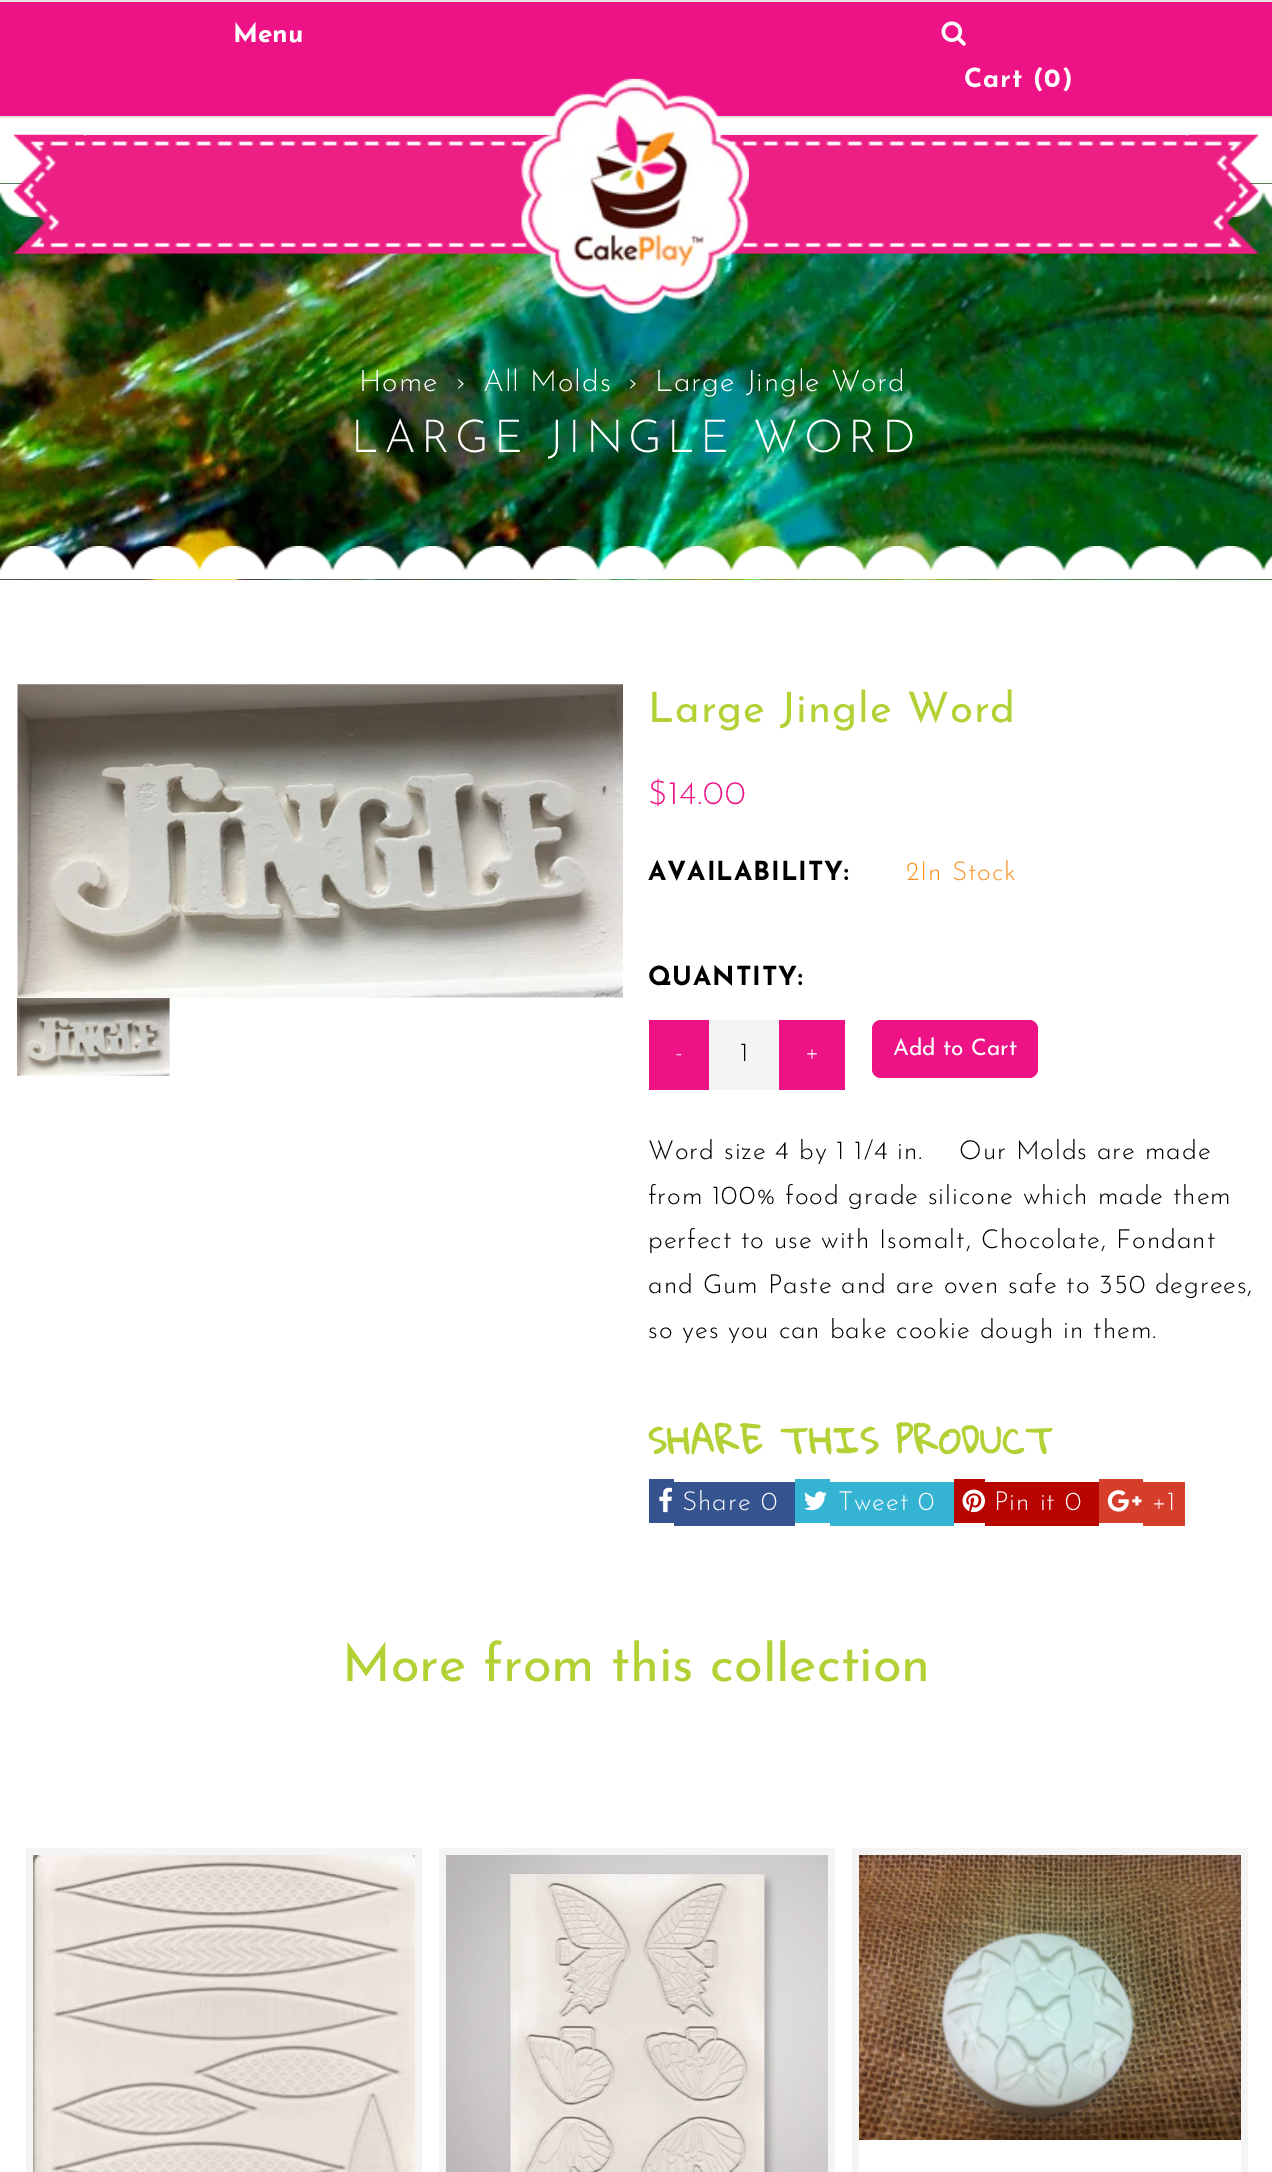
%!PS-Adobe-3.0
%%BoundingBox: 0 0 1272 2172
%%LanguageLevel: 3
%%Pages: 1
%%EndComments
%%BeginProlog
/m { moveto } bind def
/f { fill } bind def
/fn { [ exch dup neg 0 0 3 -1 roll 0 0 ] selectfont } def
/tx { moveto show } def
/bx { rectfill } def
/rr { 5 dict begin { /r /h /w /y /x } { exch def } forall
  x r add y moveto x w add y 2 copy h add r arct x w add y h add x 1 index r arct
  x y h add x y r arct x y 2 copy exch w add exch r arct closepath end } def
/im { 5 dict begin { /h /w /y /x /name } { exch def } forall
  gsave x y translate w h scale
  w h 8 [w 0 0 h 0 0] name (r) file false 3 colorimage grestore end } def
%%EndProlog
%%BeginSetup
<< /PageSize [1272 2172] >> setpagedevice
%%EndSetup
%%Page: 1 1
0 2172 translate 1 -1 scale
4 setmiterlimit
1 setgray
0 0 1272 2172 bx
0.929 0.075 0.525 setrgbcolor
0 2 1272 114 bx
0.902 0.882 0.882 setrgbcolor
0 0 1272 2 bx
0 116 1272 2 bx
/JosefinSans-Bold 26.25 fn
1 setgray
(Menu) 233 42 tx
(image0.raw) 941 21 25 25 im
964 87 m 0.9 0 (Cart \(0\)) ashow
(image5.raw) 0 183 1272 397 im
(image6.raw) 0 183 1272 34 im
(image1.raw) 84 134 1105 120 im
(image2.raw) 14 134 70 120 im
(image3.raw) 521 78 228 236 im
(image4.raw) 1188 134 71 120 im
/JosefinSans-Light 29.75 fn
359 391 m 0.9 0 (Home) ashow
455 391 m 0.9 0 (›) ashow
483 391 m 0.9 0 (All Molds) ashow
627 391 m 0.9 0 (›) ashow
655 391 m 0.9 0 (Large Jingle Word) ashow
/JosefinSans-Light 45.5 fn
351 452 m 5.25 0 (LARGE JINGLE WORD) ashow
(image7.raw) 0 546 1272 34 im
(image8.raw) 17 684 606 314 im
(image9.raw) 17 998 153 78 im
/JosefinSans-Thin 42 fn
0.694 0.82 0.208 setrgbcolor
648 722 m 0.9 0 (Large Jingle Word) ashow
/JosefinSans-Light 33 fn
0.929 0.075 0.525 setrgbcolor
648 804 m 0.9 0 ($14.00) ashow
/JosefinSans-Bold 26.25 fn
0 setgray
648 880 m 0.9 0 (AVAILABILITY:) ashow
/JosefinSans-Light 26.25 fn
0.98 0.576 0.141 setrgbcolor
906 880 m 0.9 0 (2In Stock) ashow
/JosefinSans-Bold 26.25 fn
0 setgray
648 985 m 0.9 0 (QUANTITY:) ashow
0.929 0.075 0.525 setrgbcolor
649 1020 60 70 bx
/JosefinSans-Light 26.25 fn
1 setgray
(-) 675 1060 tx
0.957 setgray
709 1020 70 70 bx
0 setgray
(1) 740 1061 tx
0.929 0.075 0.525 setrgbcolor
779 1020 66 70 bx
1 setgray
(+) 805 1060 tx
0.929 0.075 0.525 setrgbcolor
872 1020 166 58 9 rr f
/JosefinSans-Thin 22.75 fn
1 setgray
(Add to Cart) 893 1055 tx
/JosefinSans-Light 26.25 fn
0 setgray
648 1159 m 0.9 0 (Word size 4 by 1 1/4 in.) ashow
959 1159 m 0.9 0 (Our Molds are made) ashow
648 1204 m 0.9 0 (from 100% food grade silicone which made them) ashow
648 1248 m 0.9 0 (perfect to use with Isomalt, Chocolate, Fondant) ashow
648 1293 m 0.9 0 (and Gum Paste and are oven safe to 350 degrees,) ashow
648 1338 m 0.9 0 (so yes you can bake cookie dough in them.) ashow
/GloriaHallelujah-Bold 35 fn
0.694 0.82 0.208 setrgbcolor
648 1454 m 0.9 0 (SHARE THIS PRODUCT) ashow
0.208 0.325 0.561 setrgbcolor
649 1479 25 44 bx
674 1482 121 44 bx
(image10.raw) 659 1487 14 26 im
/JosefinSans-Light 26.25 fn
1 setgray
682 1510 m 0.9 0 (Share 0) ashow
0.204 0.702 0.827 setrgbcolor
795 1479 35 44 bx
830 1482 124 44 bx
(image11.raw) 804 1491 23 20 im
1 setgray
838 1510 m 0.9 0 (Tweet 0) ashow
0.718 0.016 0 setrgbcolor
954 1479 31 44 bx
985 1482 114 44 bx
(image12.raw) 962 1489 23 24 im
1 setgray
994 1510 m 0.9 0 (Pin it 0) ashow
0.835 0.243 0.169 setrgbcolor
1099 1479 44 44 bx
1143 1482 42 44 bx
(image13.raw) 1107 1490 35 22 im
1 setgray
1152 1510 m 0.9 0 (+1) ashow
/JosefinSans-Thin 52.5 fn
0.694 0.82 0.208 setrgbcolor
(More from this collection) 342 1681 tx
0.957 setgray
26 1848 396 7 bx
415 1848 7 324 bx
26 1848 7 324 bx
(image14.raw) 33 1855 382 317 im
439 1848 396 7 bx
828 1848 7 324 bx
439 1848 7 324 bx
(image15.raw) 446 1855 382 317 im
852 1848 396 7 bx
1241 1848 7 292 bx
852 1848 7 292 bx
(image16.raw) 859 1855 382 285 im
1241 2140 7 32 bx
852 2140 7 32 bx
showpage
%%EOF
